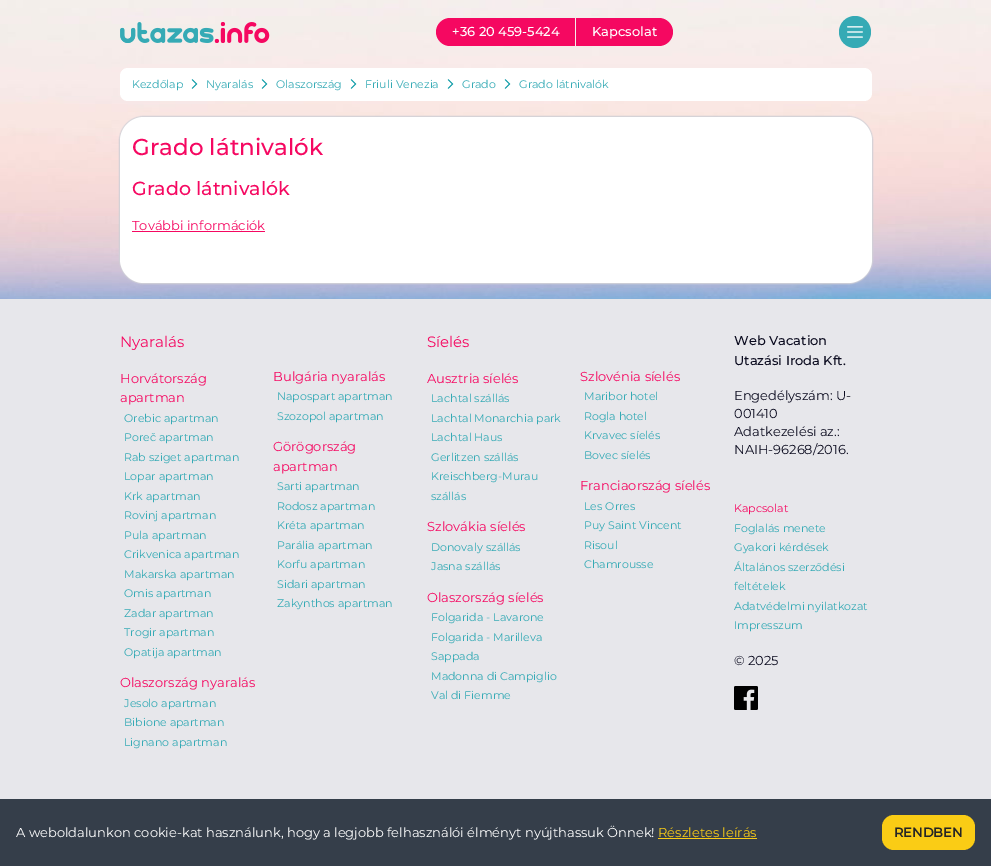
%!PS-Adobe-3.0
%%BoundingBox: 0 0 991 866
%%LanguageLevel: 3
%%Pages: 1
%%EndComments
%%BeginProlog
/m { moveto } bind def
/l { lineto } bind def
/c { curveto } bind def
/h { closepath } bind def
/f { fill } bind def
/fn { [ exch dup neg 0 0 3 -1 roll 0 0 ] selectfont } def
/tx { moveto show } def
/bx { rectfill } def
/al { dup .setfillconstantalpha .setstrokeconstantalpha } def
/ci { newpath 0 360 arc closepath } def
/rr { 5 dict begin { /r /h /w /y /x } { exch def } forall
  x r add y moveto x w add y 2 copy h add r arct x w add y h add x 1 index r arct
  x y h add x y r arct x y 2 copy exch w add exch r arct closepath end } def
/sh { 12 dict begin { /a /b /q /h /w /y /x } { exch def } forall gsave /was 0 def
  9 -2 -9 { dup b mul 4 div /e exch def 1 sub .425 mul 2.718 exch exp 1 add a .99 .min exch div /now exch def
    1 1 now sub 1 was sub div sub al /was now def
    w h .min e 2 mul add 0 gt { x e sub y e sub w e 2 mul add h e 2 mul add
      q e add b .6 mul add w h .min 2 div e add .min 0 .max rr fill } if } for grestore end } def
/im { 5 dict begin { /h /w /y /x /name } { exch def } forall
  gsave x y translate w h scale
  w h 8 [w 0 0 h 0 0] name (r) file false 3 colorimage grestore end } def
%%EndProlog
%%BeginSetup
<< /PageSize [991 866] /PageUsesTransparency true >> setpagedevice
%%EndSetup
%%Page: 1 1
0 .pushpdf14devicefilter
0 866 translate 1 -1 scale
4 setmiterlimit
0.208 0.243 0.29 setrgbcolor
0 0 991 866 bx
(image0.raw) 0 0 991 299 im
(image1.raw) 120 22 150 21 im
0.961 0.031 0.38 setrgbcolor
450 18 m 575 18 l 575 46 l 450 46 l 442.5 46 436 39.5 436 32 c 436 24.5 442.5 18 450 18 c h f
/Montserrat-Medium 13 fn
1 setgray
(+36 20 459-5424) 452 36 tx
0.961 0.031 0.38 setrgbcolor
576 18 m 659 18 l 666.5 18 673 24.5 673 32 c 673 39.5 666.5 46 659 46 c 576 46 l h f
1 setgray
(Kapcsolat) 592 36 tx
0.208 0.667 0.71 setrgbcolor
855 32 16 ci f
(image2.raw) 847 26 16 12 im
1 setgray
120 68 752 33 8 rr f
/Montserrat-Regular 11 fn
0.208 0.667 0.71 setrgbcolor
(Kezdőlap) 132 88 tx
(image3.raw) 191 79 7 10 im
(Nyaralás) 206 88 tx
(image3.raw) 261 79 7 10 im
(Olaszország) 276 88 tx
(image3.raw) 350 79 7 10 im
(Friuli Venezia) 365 88 tx
(image3.raw) 447 79 7 10 im
(Grado) 462 88 tx
(image3.raw) 504 79 7 10 im
(Grado látnivalók) 519 88 tx
0.816 0.816 0.839 setrgbcolor
119 116 754 168 25 0.5 1 sh
1 setgray
120 117 752 166 24 rr f
/Montserrat-Medium 23 fn
0.961 0.031 0.38 setrgbcolor
(Grado látnivalók) 132 155 tx
/Montserrat-Medium 19 fn
(Grado látnivalók) 132 195 tx
/Montserrat-Regular 13 fn
(További információk) 132 230 tx
132 231 133 1 bx
0.906 0.906 0.922 setrgbcolor
0 299 991 500 bx
/Montserrat-Regular 15 fn
0.961 0.031 0.38 setrgbcolor
(Nyaralás) 120 347 tx
/Montserrat-Regular 13 fn
(Horvátország) 120 383 tx
(apartman) 120 402 tx
/Montserrat-Regular 11 fn
0.208 0.667 0.71 setrgbcolor
(Orebic apartman) 124 422 tx
(Poreč apartman) 124 441 tx
(Rab sziget apartman) 124 461 tx
(Lopar apartman) 124 480 tx
(Krk apartman) 124 500 tx
(Rovinj apartman) 124 519 tx
(Pula apartman) 124 539 tx
(Crikvenica apartman) 124 558 tx
(Makarska apartman) 124 578 tx
(Omis apartman) 124 597 tx
(Zadar apartman) 124 617 tx
(Trogir apartman) 124 636 tx
(Opatija apartman) 124 656 tx
/Montserrat-Regular 13 fn
0.961 0.031 0.38 setrgbcolor
(Olaszország nyaralás) 120 687 tx
/Montserrat-Regular 11 fn
0.208 0.667 0.71 setrgbcolor
(Jesolo apartman) 124 707 tx
(Bibione apartman) 124 726 tx
(Lignano apartman) 124 746 tx
/Montserrat-Regular 13 fn
0.961 0.031 0.38 setrgbcolor
(Bulgária nyaralás) 273 381 tx
/Montserrat-Regular 11 fn
0.208 0.667 0.71 setrgbcolor
(Napospart apartman) 277 400 tx
(Szozopol apartman) 277 420 tx
/Montserrat-Regular 13 fn
0.961 0.031 0.38 setrgbcolor
(Görögország) 273 451 tx
(apartman) 273 471 tx
/Montserrat-Regular 11 fn
0.208 0.667 0.71 setrgbcolor
(Sarti apartman) 277 490 tx
(Rodosz apartman) 277 510 tx
(Kréta apartman) 277 529 tx
(Parália apartman) 277 549 tx
(Korfu apartman) 277 568 tx
(Sidari apartman) 277 588 tx
(Zakynthos apartman) 277 607 tx
/Montserrat-Regular 15 fn
0.961 0.031 0.38 setrgbcolor
(Síelés) 427 347 tx
/Montserrat-Regular 13 fn
(Ausztria síelés) 427 383 tx
/Montserrat-Regular 11 fn
0.208 0.667 0.71 setrgbcolor
(Lachtal szállás) 431 402 tx
(Lachtal Monarchia park) 431 422 tx
(Lachtal Haus) 431 441 tx
(Gerlitzen szállás) 431 461 tx
(Kreischberg-Murau) 431 480 tx
(szállás) 431 500 tx
/Montserrat-Regular 13 fn
0.961 0.031 0.38 setrgbcolor
(Szlovákia síelés) 427 531 tx
/Montserrat-Regular 11 fn
0.208 0.667 0.71 setrgbcolor
(Donovaly szállás) 431 551 tx
(Jasna szállás) 431 570 tx
/Montserrat-Regular 13 fn
0.961 0.031 0.38 setrgbcolor
(Olaszország síelés) 427 602 tx
/Montserrat-Regular 11 fn
0.208 0.667 0.71 setrgbcolor
(Folgarida - Lavarone) 431 621 tx
(Folgarida - Marilleva) 431 641 tx
(Sappada) 431 660 tx
(Madonna di Campiglio) 431 680 tx
(Val di Fiemme) 431 699 tx
/Montserrat-Regular 13 fn
0.961 0.031 0.38 setrgbcolor
(Szlovénia síelés) 580 381 tx
/Montserrat-Regular 11 fn
0.208 0.667 0.71 setrgbcolor
(Maribor hotel) 584 400 tx
(Rogla hotel) 584 420 tx
(Krvavec síelés) 584 439 tx
(Bovec síelés) 584 459 tx
/Montserrat-Regular 13 fn
0.961 0.031 0.38 setrgbcolor
(Franciaország síelés) 580 490 tx
/Montserrat-Regular 11 fn
0.208 0.667 0.71 setrgbcolor
(Les Orres) 584 510 tx
(Puy Saint Vincent) 584 529 tx
(Risoul) 584 549 tx
(Chamrousse) 584 568 tx
/Montserrat-Medium 13 fn
0.043 0.043 0.122 setrgbcolor
(Web Vacation) 734 345 tx
(Utazási Iroda Kft.) 734 365 tx
/Montserrat-Regular 13 fn
(Engedélyszám: U-) 734 400 tx
(001410) 734 418 tx
(Adatkezelési az.:) 734 436 tx
(NAIH-96268/2016.) 734 454 tx
/Montserrat-Regular 11 fn
0.961 0.031 0.38 setrgbcolor
(Kapcsolat) 734 512 tx
0.208 0.667 0.71 setrgbcolor
(Foglalás menete) 734 532 tx
(Gyakori kérdések) 734 551 tx
(Általános szerződési) 734 571 tx
(feltételek) 734 590 tx
(Adatvédelmi nyilatkozat) 734 610 tx
(Impresszum) 734 629 tx
/Montserrat-Regular 13 fn
0.043 0.043 0.122 setrgbcolor
(© 2025) 734 665 tx
(image4.raw) 734 686 24 24 im
1 setgray
(A weboldalunkon cookie-kat használunk, hogy a legjobb felhasználói élményt nyújthassuk Önnek!) 16 837 tx
0.98 0.8 0.082 setrgbcolor
(Részletes leírás) 658 837 tx
658 838 99 1 bx
882 815 93 35 12 rr f
/Montserrat-Bold 13 fn
0.149 setgray
(RENDBEN) 894 837 tx
.poppdf14devicefilter showpage
%%EOF
